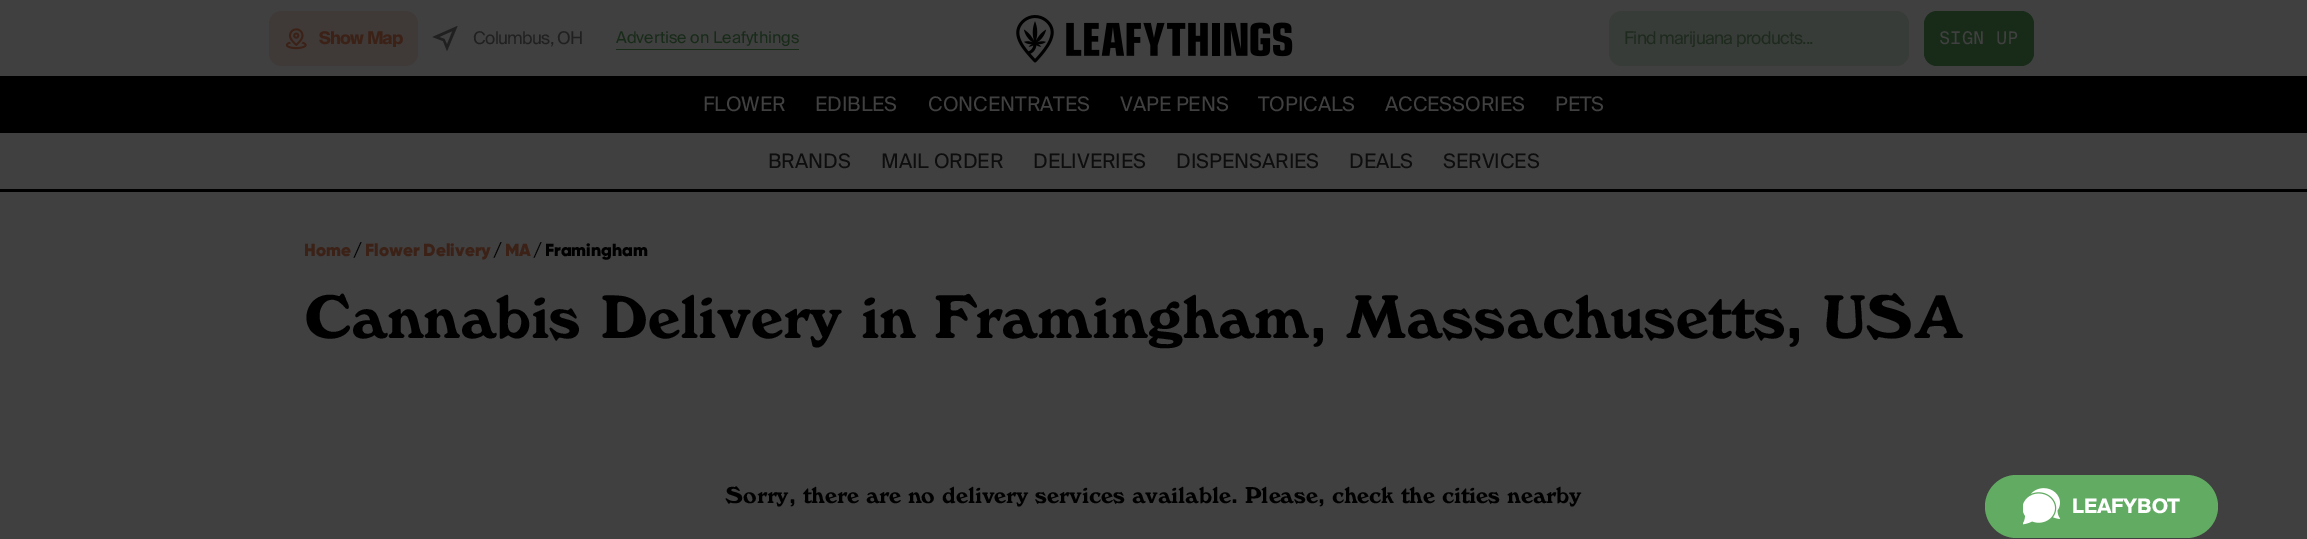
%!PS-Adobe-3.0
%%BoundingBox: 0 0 2307 539
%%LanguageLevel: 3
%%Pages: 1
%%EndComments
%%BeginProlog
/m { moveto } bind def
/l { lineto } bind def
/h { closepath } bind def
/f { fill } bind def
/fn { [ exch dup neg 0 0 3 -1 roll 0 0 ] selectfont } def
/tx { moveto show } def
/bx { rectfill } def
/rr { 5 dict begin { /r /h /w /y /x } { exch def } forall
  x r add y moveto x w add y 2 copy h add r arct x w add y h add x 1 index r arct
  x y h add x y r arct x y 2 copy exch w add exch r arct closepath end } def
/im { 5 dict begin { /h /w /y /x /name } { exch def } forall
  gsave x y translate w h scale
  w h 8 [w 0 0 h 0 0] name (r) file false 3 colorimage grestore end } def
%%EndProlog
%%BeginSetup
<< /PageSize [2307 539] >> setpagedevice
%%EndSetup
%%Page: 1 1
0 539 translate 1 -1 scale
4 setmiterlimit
0.251 setgray
0 0 2307 539 bx
0.247 0.227 0.22 setrgbcolor
269 11 149 55 13 rr f
(image0.raw) 285 28 22 22 im
/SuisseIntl-Bold 17.5 fn
0.235 0.129 0.09 setrgbcolor
319 44 m -0.7 0 (Show Map) ashow
0.125 setgray
457.5 26 m 432.5 37 l 443 41 l 447 51 l h 447 44.5 m 444.5 39 l 439 37 l 452.5 31 l h eofill
/SuisseIntl-Regular 17.5 fn
473 44 m -0.7 0 (Columbus, OH) ashow
0.094 0.169 0.098 setrgbcolor
616 49 183 1 bx
/SuisseIntl-Regular 16.25 fn
(Advertise on Leafythings) 616 43 tx
(image1.raw) 1016 15 277 48 im
0.22 0.235 0.22 setrgbcolor
1609 11 300 55 13 rr f
/SuisseIntl-Regular 17.5 fn
0.118 0.165 0.118 setrgbcolor
1624 44 m -0.7 0 (Find marijuana products...) ashow
0.094 0.169 0.098 setrgbcolor
1924 11 110 55 13 rr f
/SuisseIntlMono-Regular 17.5 fn
0.251 setgray
(SIGN UP) 1939 44 tx
0 setgray
0 76 2307 57 bx
/SuisseIntl-Regular 20 fn
0.251 setgray
(FLOWER) 703 111 tx
(EDIBLES) 815 111 tx
(CONCENTRATES) 928 111 tx
(VAPE PENS) 1120 111 tx
(TOPICALS) 1258 111 tx
(ACCESSORIES) 1385 111 tx
(PETS) 1555 111 tx
0 setgray
0 189 2307 3 bx
0.051 setgray
(BRANDS) 768 168 tx
(MAIL ORDER) 881 168 tx
(DELIVERIES) 1033 168 tx
(DISPENSARIES) 1176 168 tx
(DEALS) 1349 168 tx
(SERVICES) 1443 168 tx
/Gilroy-Black 17.5 fn
0.235 0.129 0.09 setrgbcolor
(Home) 304 256 tx
0 setgray
(/) 353 256 tx
0.235 0.129 0.09 setrgbcolor
(Flower Delivery) 365 256 tx
0 setgray
(/) 493 256 tx
0.235 0.129 0.09 setrgbcolor
(MA) 505 256 tx
0 setgray
(/) 533 256 tx
(Framingham) 545 256 tx
/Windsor-Regular 60 fn
(Cannabis Delivery in Framingham, Massachusetts, USA) 304 338 tx
/Windsor-Regular 22.5 fn
(Sorry, there are no delivery services available. Please, check the cities nearby) 725 503 tx
0.38 0.671 0.384 setrgbcolor
1985 475 233 63 31.5 rr f
(image2.raw) 2023 488 37 37 im
/SuisseIntl-Bold 20 fn
1 setgray
(LEAFYBOT) 2072 513 tx
showpage
%%EOF
